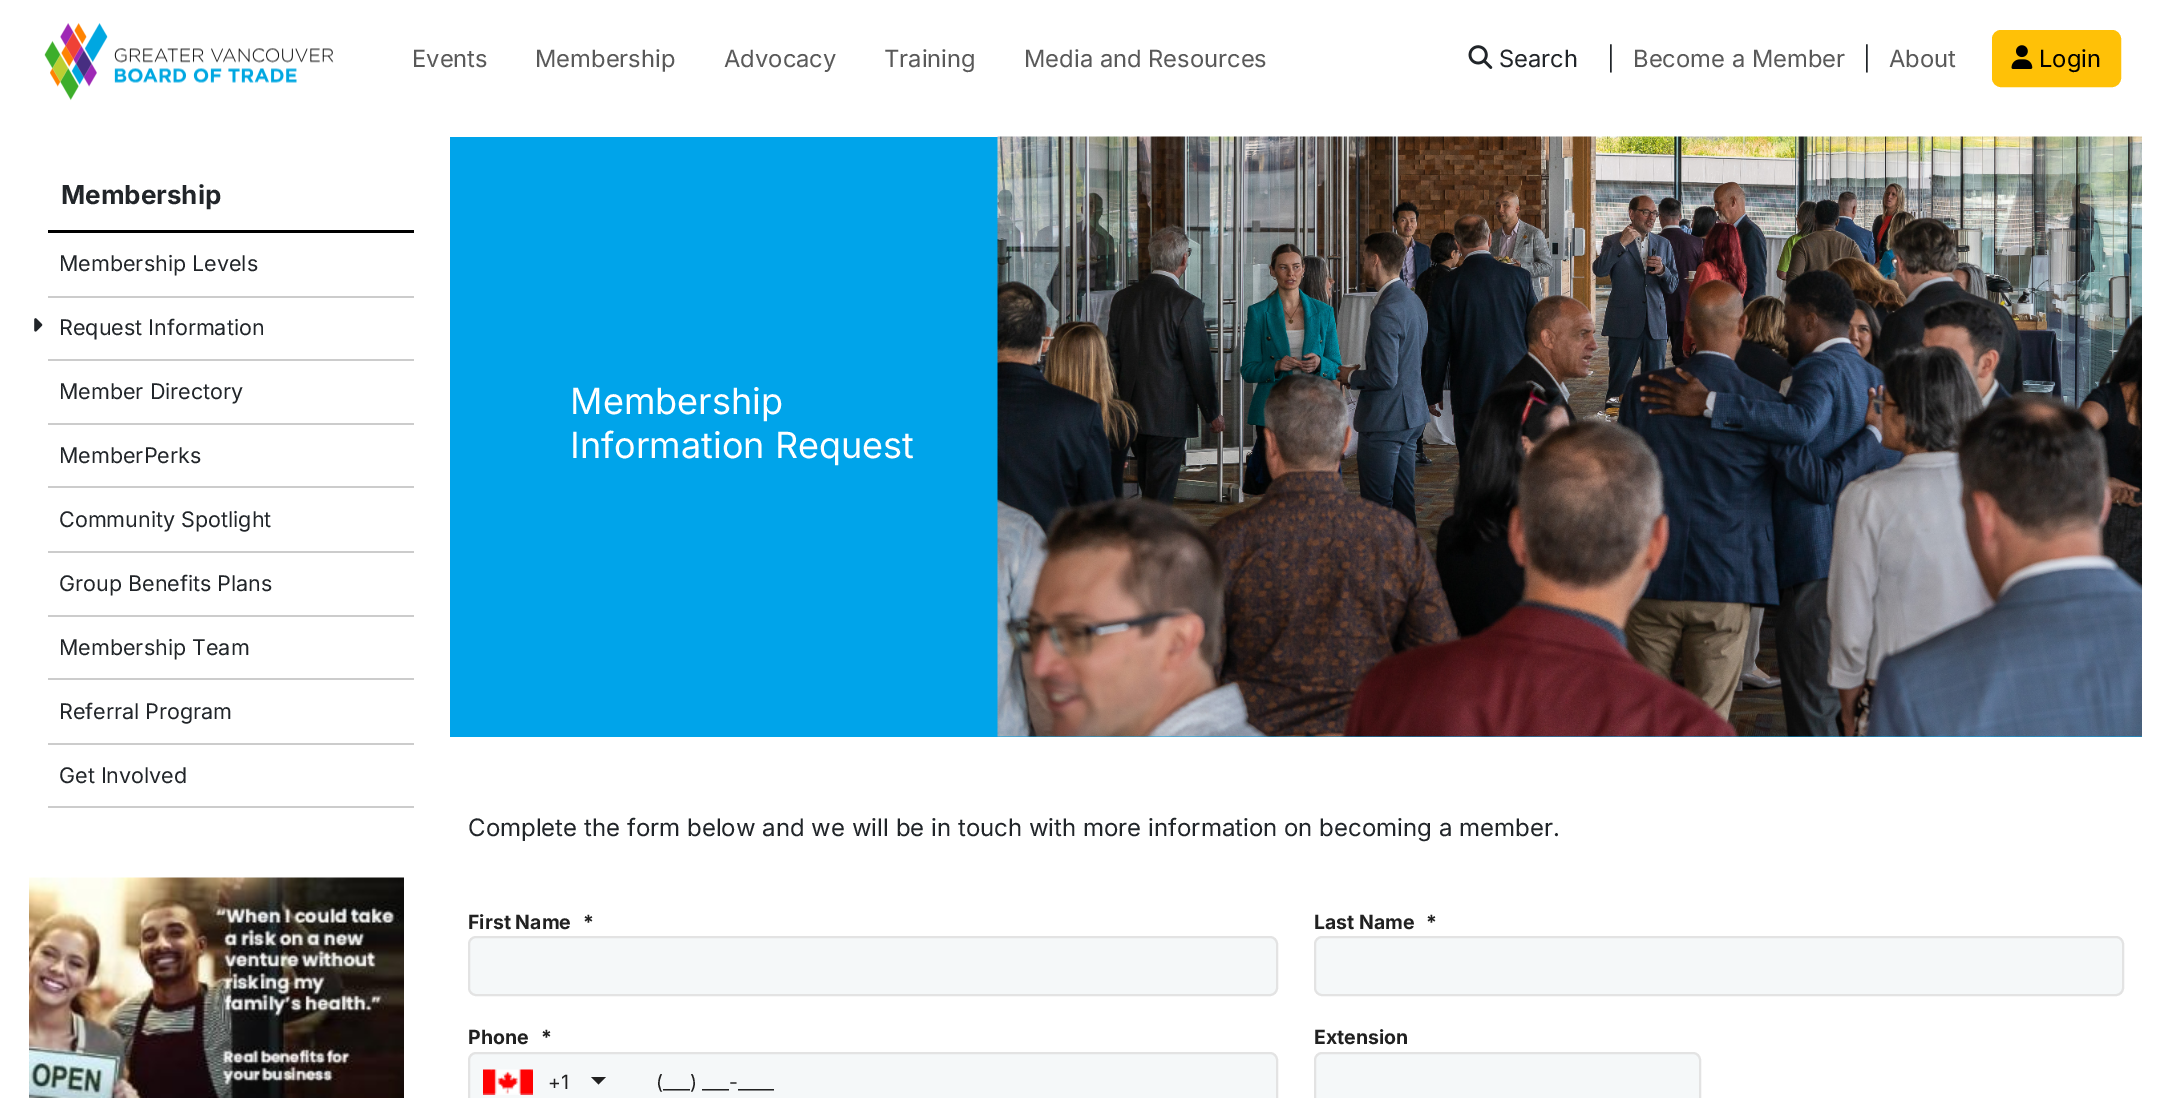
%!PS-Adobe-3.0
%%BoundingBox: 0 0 2159 1098
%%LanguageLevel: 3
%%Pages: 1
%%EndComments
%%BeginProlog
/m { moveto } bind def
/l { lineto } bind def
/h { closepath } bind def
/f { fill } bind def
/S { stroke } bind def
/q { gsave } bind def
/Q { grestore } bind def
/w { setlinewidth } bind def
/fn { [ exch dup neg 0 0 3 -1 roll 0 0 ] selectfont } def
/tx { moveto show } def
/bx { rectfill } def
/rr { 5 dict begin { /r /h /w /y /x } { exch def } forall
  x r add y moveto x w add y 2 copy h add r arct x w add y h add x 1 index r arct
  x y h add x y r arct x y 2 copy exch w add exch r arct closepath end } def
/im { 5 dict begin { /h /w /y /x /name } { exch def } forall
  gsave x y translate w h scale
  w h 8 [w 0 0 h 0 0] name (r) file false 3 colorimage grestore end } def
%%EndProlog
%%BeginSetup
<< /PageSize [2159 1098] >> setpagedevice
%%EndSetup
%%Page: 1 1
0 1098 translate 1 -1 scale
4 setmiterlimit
1 setgray
0 0 2159 1098 bx
(image0.raw) 44 23 290 78 im
/Inter-Regular 23.75 fn
0.349 setgray
(Events) 412 67 tx
(Membership) 535 67 tx
(Advocacy) 724 67 tx
(Training) 884 67 tx
(Media and Resources) 1024 67 tx
(image1.raw) 1468 45 25 24 im
0.129 0.145 0.161 setrgbcolor
(Search) 1499 67 tx
(|) 1607 67 tx
0.349 setgray
(Become a Member) 1633 67 tx
0.129 0.145 0.161 setrgbcolor
(|) 1863 67 tx
0.349 setgray
(About) 1889 67 tx
1 0.757 0.027 setrgbcolor
1993 31 127 55 8 rr q f Q
2 w
S
(image2.raw) 2011 45 22 24 im
0 setgray
(Login) 2039 67 tx
48 230 366 3 bx
/Inter-Bold 26 fn
0.129 0.145 0.161 setrgbcolor
(Membership) 61 204 tx
0.8 setgray
48 296 366 2 bx
/Inter-Regular 21.5 fn
0.129 0.145 0.161 setrgbcolor
(Membership Levels) 59 271 tx
(image3.raw) 34 318 9 14 im
0.8 setgray
48 359 366 2 bx
0.129 0.145 0.161 setrgbcolor
(Request Information) 59 335 tx
0.8 setgray
48 423 366 2 bx
0.129 0.145 0.161 setrgbcolor
(Member Directory) 59 399 tx
0.8 setgray
48 486 366 2 bx
0.129 0.145 0.161 setrgbcolor
(MemberPerks) 59 463 tx
0.8 setgray
48 551 366 2 bx
0.129 0.145 0.161 setrgbcolor
(Community Spotlight) 59 527 tx
0.8 setgray
48 615 366 2 bx
0.129 0.145 0.161 setrgbcolor
(Group Benefits Plans) 59 591 tx
0.8 setgray
48 678 366 2 bx
0.129 0.145 0.161 setrgbcolor
(Membership Team) 59 655 tx
0.8 setgray
48 743 366 2 bx
0.129 0.145 0.161 setrgbcolor
(Referral Program) 59 719 tx
0.8 setgray
48 806 366 2 bx
0.129 0.145 0.161 setrgbcolor
(Get Involved) 59 783 tx
(image4.raw) 29 877 375 221 im
0 0.643 0.918 setrgbcolor
450 137 1692 600 bx
/Inter-Regular 36 fn
1 setgray
(Membership) 570 414 tx
(Information Request) 570 458 tx
(image5.raw) 997 136 1145 601 im
/Inter-Regular 24 fn
0.129 0.145 0.161 setrgbcolor
(Complete the form below and we will be in touch with more information on becoming a member.) 468 836 tx
/Inter-Bold 19.5 fn
0.129 setgray
(First Name) 468 929 tx
(*) 583 929 tx
0.961 0.973 0.976 setrgbcolor
469 937 808 58 7 rr q f Q
0.89 setgray
S
0.129 setgray
(Last Name) 1314 929 tx
(*) 1426 929 tx
0.961 0.973 0.976 setrgbcolor
1315 937 808 58 7 rr q f Q
0.89 setgray
S
0.129 setgray
(Phone) 468 1044 tx
(*) 541 1044 tx
0.961 0.973 0.976 setrgbcolor
469 1053 808 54 7 rr q f Q
0.89 setgray
S
(image6.raw) 483 1069 50 26 im
/Inter-Regular 19.5 fn
0.129 setgray
(+1) 548 1089 tx
591 1077 m 606 1077 l 598.5 1084.5 l h f
(\(___\) ___-____) 656 1089 tx
/Inter-Bold 19.5 fn
(Extension) 1314 1044 tx
0.961 0.973 0.976 setrgbcolor
1315 1053 385 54 7 rr q f Q
0.89 setgray
S
showpage
%%EOF
